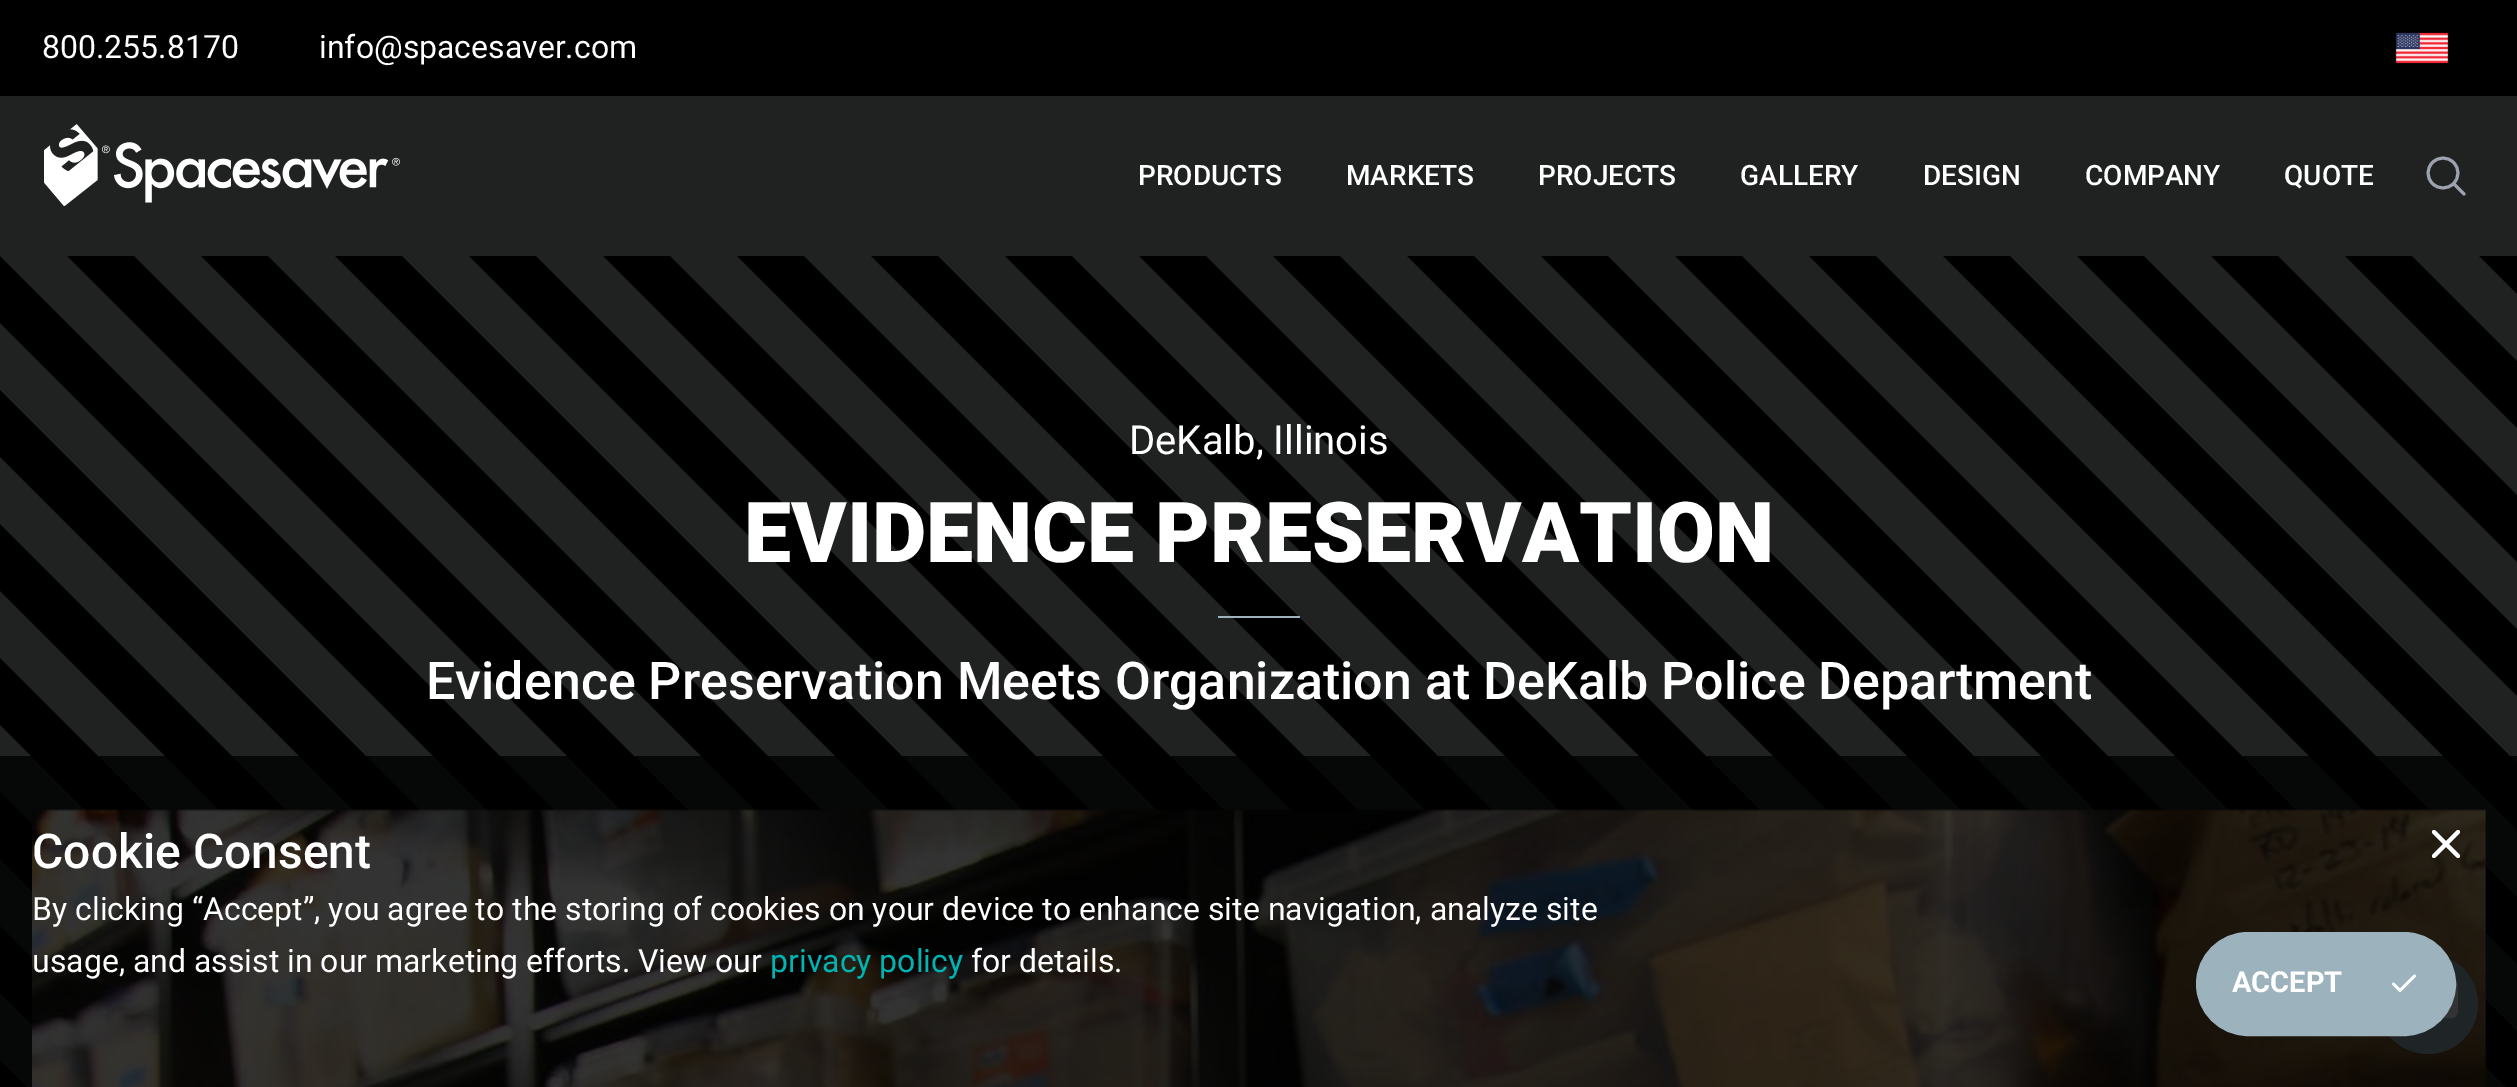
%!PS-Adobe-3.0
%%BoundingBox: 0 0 2517 1087
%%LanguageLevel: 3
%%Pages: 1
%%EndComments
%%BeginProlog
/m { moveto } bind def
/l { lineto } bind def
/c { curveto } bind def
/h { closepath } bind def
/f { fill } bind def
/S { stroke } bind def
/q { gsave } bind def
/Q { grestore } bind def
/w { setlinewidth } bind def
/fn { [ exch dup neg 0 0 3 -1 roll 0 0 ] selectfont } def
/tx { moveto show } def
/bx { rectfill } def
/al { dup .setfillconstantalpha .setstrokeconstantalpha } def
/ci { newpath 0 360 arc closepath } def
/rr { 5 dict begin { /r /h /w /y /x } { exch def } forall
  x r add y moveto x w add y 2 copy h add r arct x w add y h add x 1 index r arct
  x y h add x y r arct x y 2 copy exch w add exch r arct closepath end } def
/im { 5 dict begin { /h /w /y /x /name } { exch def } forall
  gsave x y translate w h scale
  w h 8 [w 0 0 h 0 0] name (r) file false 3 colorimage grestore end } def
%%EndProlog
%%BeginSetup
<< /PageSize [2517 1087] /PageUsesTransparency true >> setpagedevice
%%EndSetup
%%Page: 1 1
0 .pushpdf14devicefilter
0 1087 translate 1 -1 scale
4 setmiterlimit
0 setgray
0 0 2517 1087 bx
/Roboto-Regular 32 fn
1 setgray
(800.255.8170) 42 58 tx
(info@spacesaver.com) 319 58 tx
(image0.raw) 2395 32 54 32 im
0.125 0.129 0.129 setrgbcolor
0 96 2517 160 bx
(image1.raw) 44 124 356 82 im
/Roboto-Medium 28 fn
1 setgray
(PRODUCTS) 1138 185 tx
(MARKETS) 1346 185 tx
(PROJECTS) 1538 185 tx
(GALLERY) 1740 185 tx
(DESIGN) 1923 185 tx
(COMPANY) 2085 185 tx
(QUOTE) 2284 185 tx
0.612 0.639 0.686 setrgbcolor
3 w
1 setlinecap
1 setlinejoin
2464 194 m 2453.5 183.5 l 2453.5 183.5 m 2459.5 177.5 2459.5 168.5 2453.5 162.5 c 2447.5 156.5 2438.5 156.5 2432.5 162.5 c 2426.5 168.5 2426.5 177.5 2432.5 183.5 c 2438.5 189.5 2447.5 189.5 2453.5 183.5 c h S
(image2.raw) 0 256 2517 831 im
/Roboto-Regular 40 fn
1 setgray
(DeKalb, Illinois) 1129 454 tx
/Roboto-Black 84 fn
(EVIDENCE PRESERVATION) 744 562 tx
q
1218 616 82 2 rectclip
0.612 0.702 0.741 setrgbcolor
2.8 w
0 setlinecap
0 setlinejoin
1300 617 m 1218 617 l S
Q
/Roboto-Medium 52 fn
(Evidence Preservation Meets Organization at DeKalb Police Department) 426 699 tx
(image3.raw) 32 809 2454 278 im
0.612 0.702 0.741 setrgbcolor
2428 1004 50 ci f
(image4.raw) 2442 981 16 38 im
0.8 al
0 setgray
0 756 2517 331 bx
/Roboto-Medium 48 fn
1 al
1 setgray
(Cookie Consent) 32 868 tx
/Roboto-Regular 32 fn
(By clicking “Accept”, you agree to the storing of cookies on your device to enhance site navigation, analyze site) 32 920 tx
(usage, and assist in our marketing efforts. View our) 32 972 tx
0 0.706 0.706 setrgbcolor
(privacy policy) 770 972 tx
1 setgray
(for details.) 971 972 tx
4 w
2458 832 m 2434 856 l 2434 832 m 2458 856 l S
0.612 0.702 0.741 setrgbcolor
2198 934 256 100 50 rr q f Q
0 setlinecap
0 setlinejoin
S
/Roboto-Bold 29 fn
1 setgray
(ACCEPT) 2232 992 tx
2.7 w
1 setlinecap
1 setlinejoin
2414.5 976 m 2400 990.5 l 2393.5 984 l S
.poppdf14devicefilter showpage
%%EOF
